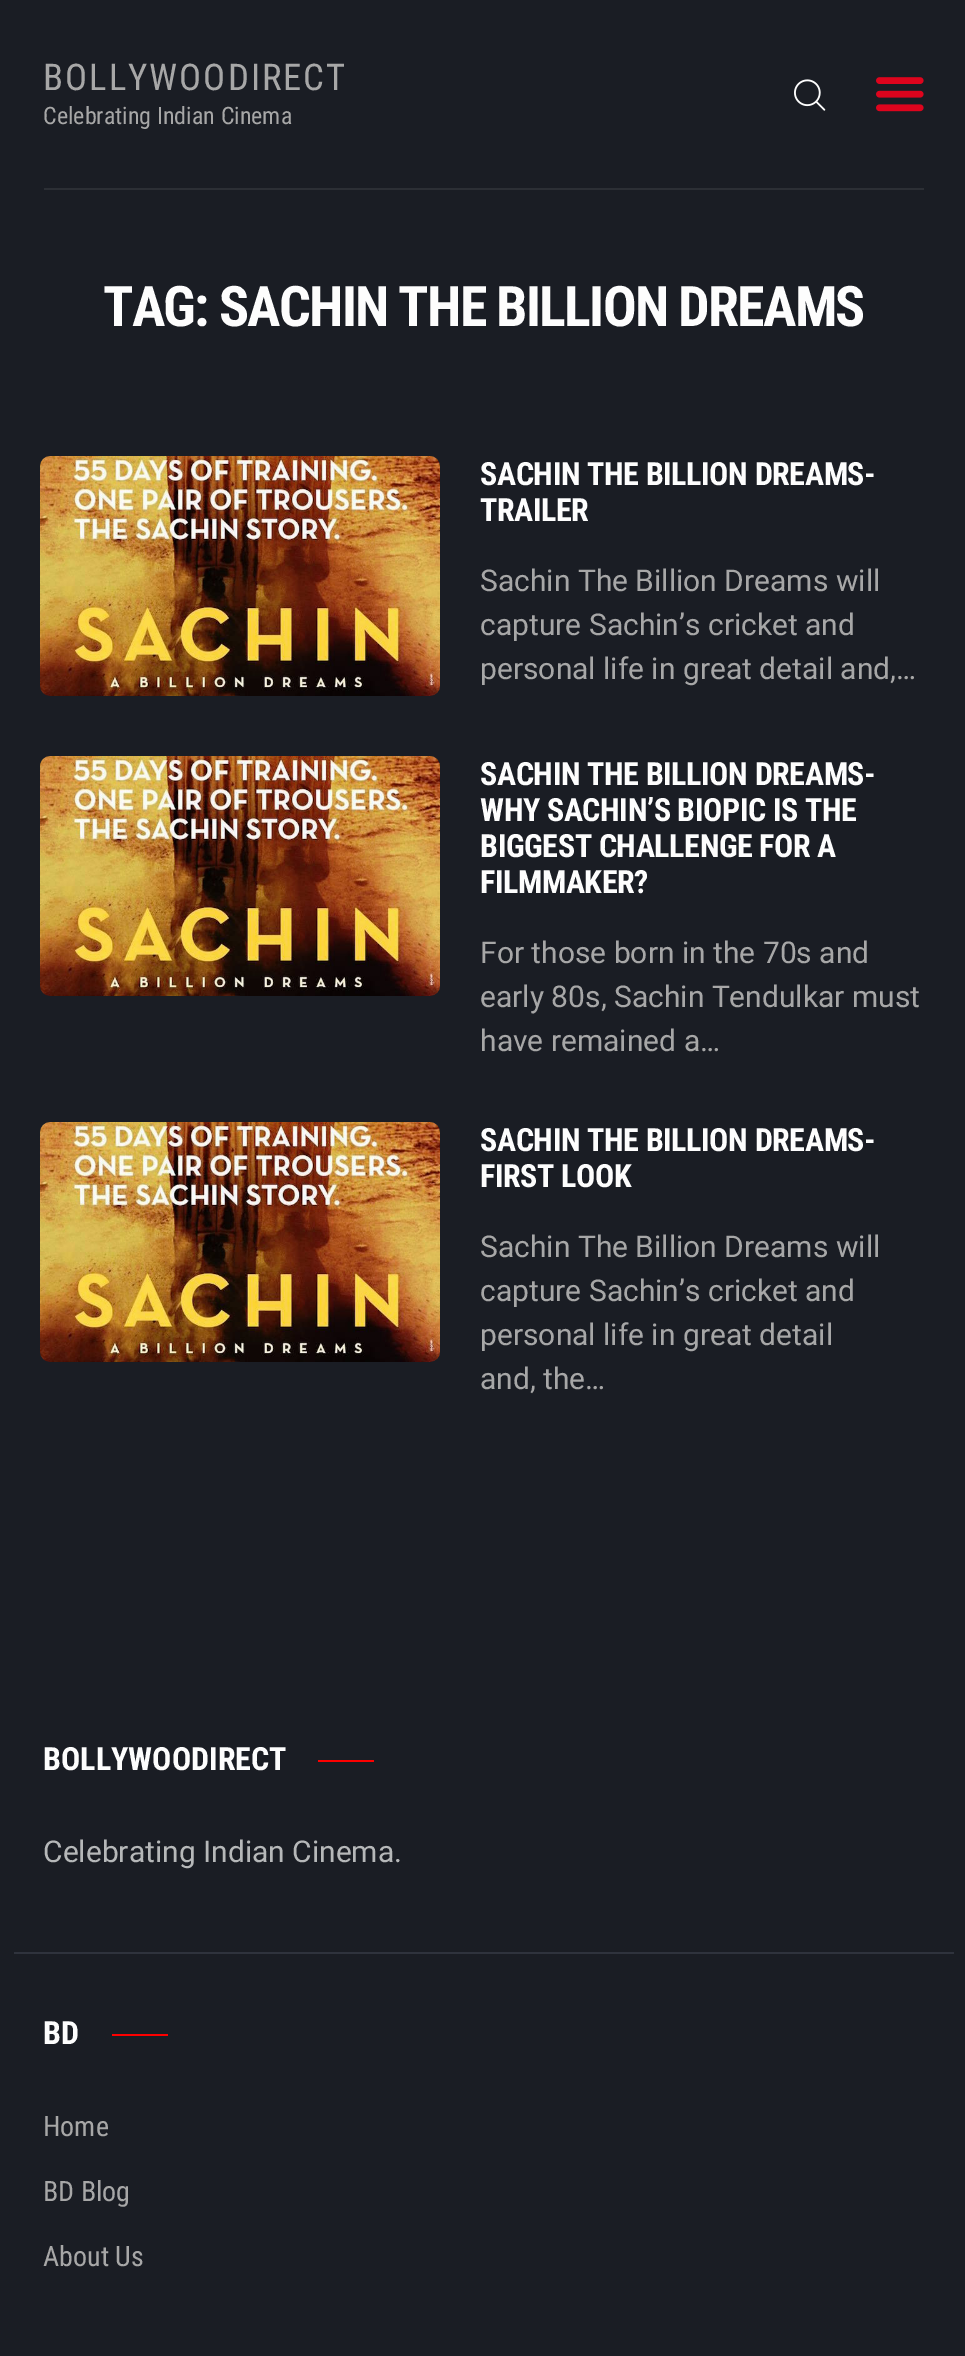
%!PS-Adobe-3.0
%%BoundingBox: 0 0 965 2356
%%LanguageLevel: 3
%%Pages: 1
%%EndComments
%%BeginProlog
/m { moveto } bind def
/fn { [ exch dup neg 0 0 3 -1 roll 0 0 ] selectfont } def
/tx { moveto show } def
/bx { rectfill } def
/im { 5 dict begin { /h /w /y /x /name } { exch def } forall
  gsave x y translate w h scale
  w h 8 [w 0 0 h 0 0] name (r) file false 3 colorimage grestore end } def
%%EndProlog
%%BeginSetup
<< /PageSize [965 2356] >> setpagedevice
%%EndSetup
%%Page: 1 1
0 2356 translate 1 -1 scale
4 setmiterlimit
0.102 0.114 0.141 setrgbcolor
0 0 965 2356 bx
/RobotoCondensed-Regular 36.75 fn
0.655 setgray
43 90 m 2 0 (BOLLYWOODIRECT) ashow
/RobotoCondensed-Regular 24 fn
(Celebrating Indian Cinema) 43 124 tx
(image0.raw) 794 79 32 32 im
(image1.raw) 876 77 48 35 im
0.173 0.184 0.208 setrgbcolor
44 188 880 2 bx
/RobotoCondensed-Bold 56 fn
0.992 setgray
103 326 m -1.8 0 (TAG: SACHIN THE BILLION DREAMS) ashow
(image2.raw) 40 456 400 240 im
/RobotoCondensed-Bold 32 fn
480 485 m -0.4 0 (SACHIN THE BILLION DREAMS-) ashow
480 521 m -0.4 0 (TRAILER) ashow
/Roboto-Regular 30 fn
0.655 setgray
(Sachin The Billion Dreams will) 480 591 tx
(capture Sachin’s cricket and) 480 635 tx
(personal life in great detail and,…) 480 679 tx
(image3.raw) 40 756 400 240 im
/RobotoCondensed-Bold 32 fn
0.992 setgray
480 785 m -0.4 0 (SACHIN THE BILLION DREAMS-) ashow
480 821 m -0.4 0 (WHY SACHIN’S BIOPIC IS THE) ashow
480 857 m -0.4 0 (BIGGEST CHALLENGE FOR A) ashow
480 893 m -0.4 0 (FILMMAKER?) ashow
/Roboto-Regular 30 fn
0.655 setgray
(For those born in the 70s and) 480 963 tx
(early 80s, Sachin Tendulkar must) 480 1007 tx
(have remained a…) 480 1051 tx
(image4.raw) 40 1122 400 240 im
/RobotoCondensed-Bold 32 fn
0.992 setgray
480 1151 m -0.4 0 (SACHIN THE BILLION DREAMS-) ashow
480 1187 m -0.4 0 (FIRST LOOK) ashow
/Roboto-Regular 30 fn
0.655 setgray
(Sachin The Billion Dreams will) 480 1257 tx
(capture Sachin’s cricket and) 480 1301 tx
(personal life in great detail) 480 1345 tx
(and, the…) 480 1389 tx
/RobotoCondensed-Bold 32 fn
0.992 setgray
(BOLLYWOODIRECT) 43 1770 tx
0.992 0 0 setrgbcolor
318 1760 56 2 bx
/Roboto-Regular 30 fn
0.714 0.722 0.725 setrgbcolor
(Celebrating Indian Cinema.) 43 1862 tx
0.184 0.2 0.239 setrgbcolor
14 1952 940 2 bx
/RobotoCondensed-Bold 32 fn
0.992 setgray
(BD) 43 2044 tx
0.992 0 0 setrgbcolor
112 2034 56 2 bx
/RobotoCondensed-Regular 28 fn
0.655 setgray
(Home) 43 2136 tx
(BD Blog) 43 2201 tx
(About Us) 43 2266 tx
showpage
%%EOF
